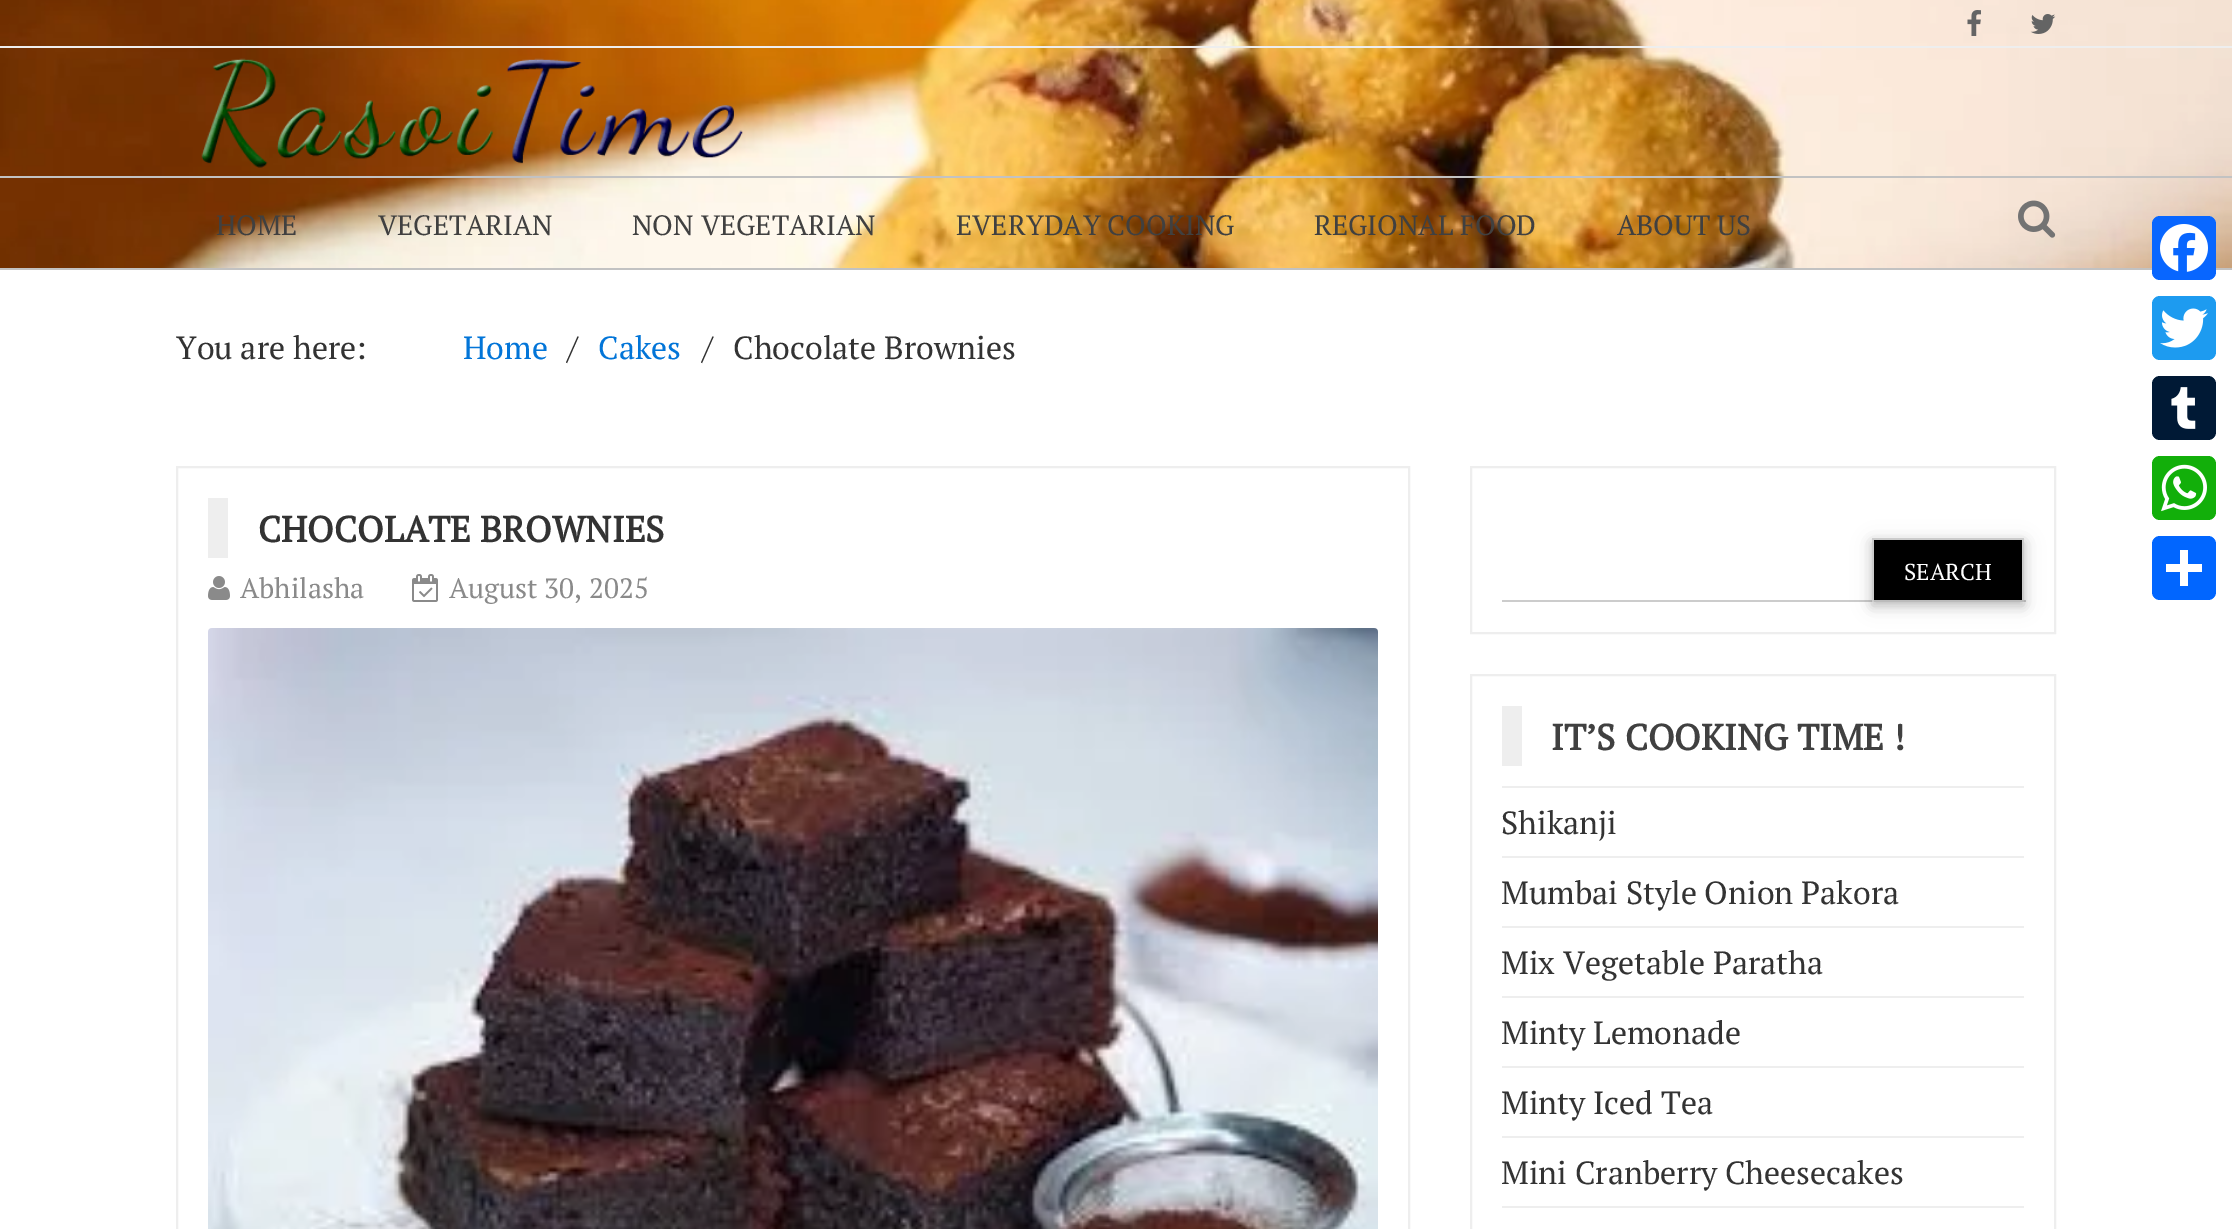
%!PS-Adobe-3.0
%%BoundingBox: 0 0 2232 1229
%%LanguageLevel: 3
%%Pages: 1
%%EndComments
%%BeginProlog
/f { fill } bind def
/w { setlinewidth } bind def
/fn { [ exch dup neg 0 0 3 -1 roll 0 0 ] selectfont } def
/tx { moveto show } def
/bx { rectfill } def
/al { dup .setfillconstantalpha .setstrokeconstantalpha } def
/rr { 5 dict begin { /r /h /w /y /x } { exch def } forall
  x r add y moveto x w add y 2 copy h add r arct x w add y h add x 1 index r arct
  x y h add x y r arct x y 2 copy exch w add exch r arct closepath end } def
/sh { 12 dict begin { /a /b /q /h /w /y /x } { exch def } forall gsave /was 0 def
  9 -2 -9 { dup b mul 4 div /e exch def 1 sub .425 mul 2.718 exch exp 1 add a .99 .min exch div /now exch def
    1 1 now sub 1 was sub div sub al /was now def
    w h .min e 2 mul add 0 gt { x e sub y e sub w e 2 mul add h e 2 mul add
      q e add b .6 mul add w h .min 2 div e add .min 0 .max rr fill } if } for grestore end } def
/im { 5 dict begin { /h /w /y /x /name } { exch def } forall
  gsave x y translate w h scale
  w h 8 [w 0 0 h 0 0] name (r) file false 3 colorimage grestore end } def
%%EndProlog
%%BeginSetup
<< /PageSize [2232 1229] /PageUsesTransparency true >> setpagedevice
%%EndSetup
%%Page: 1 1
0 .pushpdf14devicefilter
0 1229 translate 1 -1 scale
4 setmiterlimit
1 setgray
0 0 2232 1229 bx
(image0.raw) 0 0 2232 268 im
0.933 setgray
0 46 2232 2 bx
(image1.raw) 1967 10 14 26 im
(image2.raw) 2030 14 26 20 im
(image3.raw) 201 58 542 110 im
0.761 setgray
0 176 2232 2 bx
0 268 2232 2 bx
/PTSerif-Regular 28 fn
0.251 setgray
(HOME) 216 235 tx
(VEGETARIAN) 378 235 tx
(NON VEGETARIAN) 632 235 tx
(EVERYDAY COOKING) 956 235 tx
(REGIONAL FOOD) 1314 235 tx
(ABOUT US) 1617 235 tx
(image4.raw) 2018 200 38 38 im
0.031 0.4 1 setrgbcolor
2152 216 64 64 8 rr f
(image5.raw) 2160 224 48 48 im
0.114 0.608 0.941 setrgbcolor
2152 296 64 64 8 rr f
(image6.raw) 2160 308 48 40 im
0 0.098 0.208 setrgbcolor
2152 376 64 64 8 rr f
(image7.raw) 2171 387 25 42 im
0.071 0.686 0.039 setrgbcolor
2152 456 64 64 8 rr f
(image8.raw) 2161 464 46 48 im
0.004 0.4 1 setrgbcolor
2152 536 64 64 8 rr f
1 setgray
2180 550 8 36 bx
2166 564 36 8 bx
/PTSerif-Regular 32 fn
0.2 setgray
(You are here:) 176 359 tx
0.008 0.459 0.847 setrgbcolor
(Home) 463 359 tx
0.2 setgray
(/) 567 359 tx
0.008 0.459 0.847 setrgbcolor
(Cakes) 598 359 tx
0.2 setgray
(/) 702 359 tx
(Chocolate Brownies) 733 359 tx
0.933 setgray
2 w
177 467 1232 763 rectstroke
208 498 20 60 bx
/PTSerif-Bold 36 fn
0.2 setgray
(CHOCOLATE BROWNIES) 258 542 tx
(image9.raw) 208 576 22 24 im
/PTSerif-Regular 28 fn
0.541 setgray
(Abhilasha) 240 598 tx
(image10.raw) 412 574 26 28 im
(August 30, 2025) 449 598 tx
(image11.raw) 208 628 1170 601 im
0.933 setgray
1471 467 584 166 rectstroke
0.8 setgray
1502 600 524 2 bx
0 setgray
1872 542 152 64 0 10 0.12 sh
1872 542 152 64 0 5 0.16 sh
1874 540 148 60 bx
0.8 setgray
1872 538 152 2 bx
2022 538 2 64 bx
0.733 setgray
1872 600 152 2 bx
0.8 setgray
1872 538 2 64 bx
/PTSerif-Regular 23 fn
1 setgray
(SEARCH) 1904 580 tx
0.933 setgray
1471 675 584 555 rectstroke
1502 706 20 60 bx
/PTSerif-Bold 36 fn
0.251 setgray
(IT’S COOKING TIME !) 1551 750 tx
0.933 setgray
1502 786 522 2 bx
1502 856 522 2 bx
/PTSerif-Regular 32 fn
0.2 setgray
(Shikanji) 1501 834 tx
0.933 setgray
1502 926 522 2 bx
0.2 setgray
(Mumbai Style Onion Pakora) 1501 904 tx
0.933 setgray
1502 996 522 2 bx
0.2 setgray
(Mix Vegetable Paratha) 1501 974 tx
0.933 setgray
1502 1066 522 2 bx
0.2 setgray
(Minty Lemonade) 1501 1044 tx
0.933 setgray
1502 1136 522 2 bx
0.2 setgray
(Minty Iced Tea) 1501 1114 tx
0.933 setgray
1502 1206 522 2 bx
0.2 setgray
(Mini Cranberry Cheesecakes) 1501 1184 tx
.poppdf14devicefilter showpage
%%EOF
